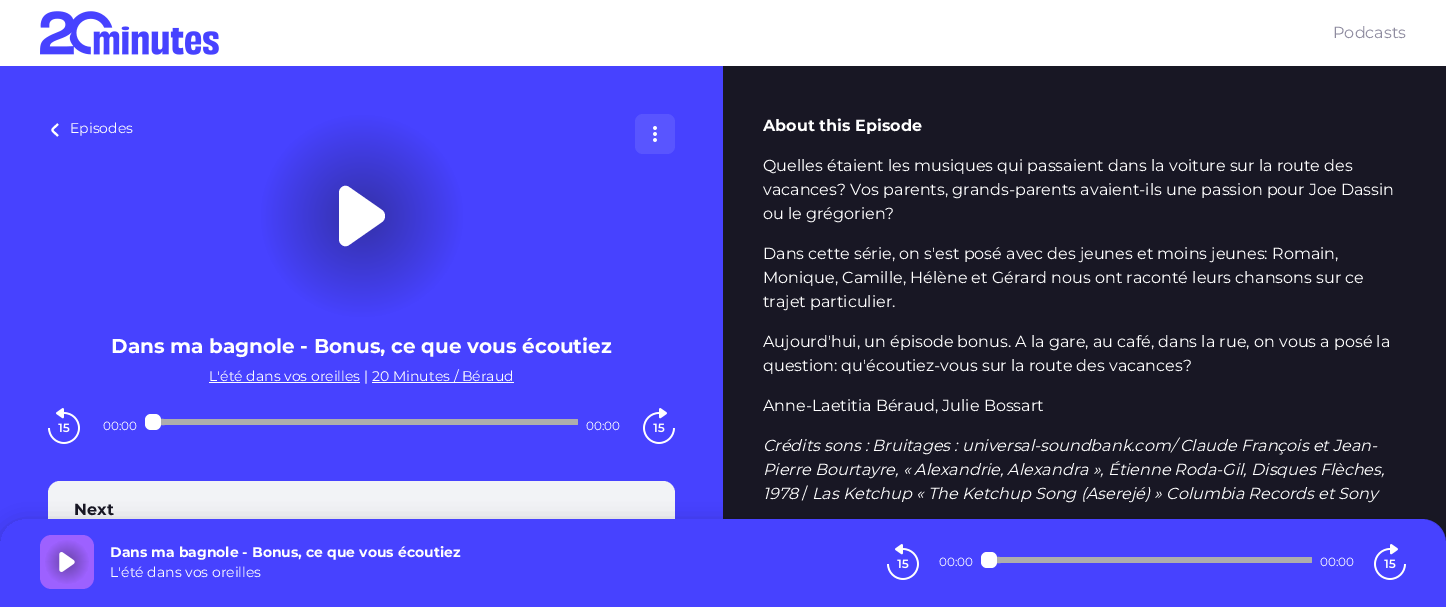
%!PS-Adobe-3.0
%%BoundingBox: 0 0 1446 607
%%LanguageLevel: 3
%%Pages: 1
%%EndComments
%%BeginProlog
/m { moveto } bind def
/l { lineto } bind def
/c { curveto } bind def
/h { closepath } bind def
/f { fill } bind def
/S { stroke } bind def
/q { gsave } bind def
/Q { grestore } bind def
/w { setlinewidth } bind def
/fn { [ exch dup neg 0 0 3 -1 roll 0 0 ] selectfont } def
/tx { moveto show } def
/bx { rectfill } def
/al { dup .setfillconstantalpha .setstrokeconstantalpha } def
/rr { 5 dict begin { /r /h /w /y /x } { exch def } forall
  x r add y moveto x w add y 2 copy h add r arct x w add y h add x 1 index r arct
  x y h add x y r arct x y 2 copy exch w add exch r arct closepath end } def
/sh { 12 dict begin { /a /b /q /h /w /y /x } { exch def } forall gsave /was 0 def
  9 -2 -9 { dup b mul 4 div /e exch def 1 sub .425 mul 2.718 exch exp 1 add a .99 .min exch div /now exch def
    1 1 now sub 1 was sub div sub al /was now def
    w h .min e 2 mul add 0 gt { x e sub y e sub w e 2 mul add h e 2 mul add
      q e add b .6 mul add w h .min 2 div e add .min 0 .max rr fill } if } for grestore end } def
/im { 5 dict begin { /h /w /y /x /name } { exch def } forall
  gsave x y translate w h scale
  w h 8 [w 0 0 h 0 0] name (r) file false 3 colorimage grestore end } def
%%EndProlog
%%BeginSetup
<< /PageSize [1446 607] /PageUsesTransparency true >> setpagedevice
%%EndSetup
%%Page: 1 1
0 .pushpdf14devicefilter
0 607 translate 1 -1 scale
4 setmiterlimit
1 setgray
0 0 1446 607 bx
(image0.raw) 40 11 179 44 im
/Montserrat-Regular 16 fn
0.553 0.541 0.62 setrgbcolor
(Podcasts) 1333 38 tx
0.278 0.259 1 setrgbcolor
0 66 723 477 bx
1 setgray
2 w
58 124 m 50.5 131.5 50.5 128.5 58 136 c S
/Montserrat-Regular 14 fn
(Episodes) 70 133 tx
0.349 0.333 1 setrgbcolor
635 114 40 40 8 rr f
(image1.raw) 653 126 4 16 im
q 260 114 204 204 8 rr clip newpath 362 216 translate 102 102 scale
<< /ShadingType 3 /ColorSpace /DeviceRGB /Coords [0 0 0 0 0 1] /Extend [true true] /Function << /FunctionType 2 /Domain [0 1] /C0 [0.204 0.192 0.655] /C1 [0.278 0.259 1] /N 1 >> >> shfill Q
1 setgray
339 239 m 339 193 l 339 187 345 184 349 187 c 382 210 l 386 213 386 219 382 222 c 349 245 l 345 248 339 245 339 239 c h f
/Montserrat-Bold 20 fn
(Dans ma bagnole - Bonus, ce que vous écoutiez) 111 353 tx
/Montserrat-Regular 14 fn
(L'été dans vos oreilles) 209 381 tx
209 382 151 1 bx
(|) 364 381 tx
372 382 142 1 bx
(20 Minutes / Béraud) 372 381 tx
(image2.raw) 48 408 32 36 im
/Montserrat-Regular 12 fn
(00:00) 103 430 tx
0.678 setgray
572 419 6 6 1 rr f
571 419 6 6 1 rr f
570 419 6 6 1 rr f
569 419 6 6 1 rr f
568 419 6 6 1 rr f
567 419 6 6 1 rr f
566 419 6 6 1 rr f
565 419 6 6 1 rr f
564 419 6 6 1 rr f
563 419 6 6 1 rr f
562 419 6 6 1 rr f
561 419 6 6 1 rr f
560 419 6 6 1 rr f
559 419 6 6 1 rr f
558 419 6 6 1 rr f
557 419 6 6 1 rr f
556 419 6 6 1 rr f
555 419 6 6 1 rr f
554 419 6 6 1 rr f
553 419 6 6 1 rr f
552 419 6 6 1 rr f
551 419 6 6 1 rr f
550 419 6 6 1 rr f
549 419 6 6 1 rr f
548 419 6 6 1 rr f
547 419 6 6 1 rr f
546 419 6 6 1 rr f
545 419 6 6 1 rr f
544 419 6 6 1 rr f
543 419 6 6 1 rr f
542 419 6 6 1 rr f
541 419 6 6 1 rr f
540 419 6 6 1 rr f
539 419 6 6 1 rr f
538 419 6 6 1 rr f
537 419 6 6 1 rr f
536 419 6 6 1 rr f
535 419 6 6 1 rr f
534 419 6 6 1 rr f
533 419 6 6 1 rr f
532 419 6 6 1 rr f
531 419 6 6 1 rr f
530 419 6 6 1 rr f
529 419 6 6 1 rr f
528 419 6 6 1 rr f
527 419 6 6 1 rr f
526 419 6 6 1 rr f
525 419 6 6 1 rr f
524 419 6 6 1 rr f
523 419 6 6 1 rr f
522 419 6 6 1 rr f
521 419 6 6 1 rr f
520 419 6 6 1 rr f
519 419 6 6 1 rr f
518 419 6 6 1 rr f
517 419 6 6 1 rr f
516 419 6 6 1 rr f
515 419 6 6 1 rr f
514 419 6 6 1 rr f
513 419 6 6 1 rr f
512 419 6 6 1 rr f
511 419 6 6 1 rr f
510 419 6 6 1 rr f
509 419 6 6 1 rr f
508 419 6 6 1 rr f
507 419 6 6 1 rr f
506 419 6 6 1 rr f
505 419 6 6 1 rr f
504 419 6 6 1 rr f
503 419 6 6 1 rr f
502 419 6 6 1 rr f
501 419 6 6 1 rr f
500 419 6 6 1 rr f
499 419 6 6 1 rr f
498 419 6 6 1 rr f
497 419 6 6 1 rr f
496 419 6 6 1 rr f
495 419 6 6 1 rr f
494 419 6 6 1 rr f
493 419 6 6 1 rr f
492 419 6 6 1 rr f
491 419 6 6 1 rr f
490 419 6 6 1 rr f
489 419 6 6 1 rr f
488 419 6 6 1 rr f
487 419 6 6 1 rr f
486 419 6 6 1 rr f
485 419 6 6 1 rr f
484 419 6 6 1 rr f
483 419 6 6 1 rr f
482 419 6 6 1 rr f
481 419 6 6 1 rr f
480 419 6 6 1 rr f
479 419 6 6 1 rr f
478 419 6 6 1 rr f
477 419 6 6 1 rr f
476 419 6 6 1 rr f
475 419 6 6 1 rr f
474 419 6 6 1 rr f
473 419 6 6 1 rr f
472 419 6 6 1 rr f
471 419 6 6 1 rr f
470 419 6 6 1 rr f
469 419 6 6 1 rr f
468 419 6 6 1 rr f
467 419 6 6 1 rr f
466 419 6 6 1 rr f
465 419 6 6 1 rr f
464 419 6 6 1 rr f
463 419 6 6 1 rr f
462 419 6 6 1 rr f
461 419 6 6 1 rr f
460 419 6 6 1 rr f
459 419 6 6 1 rr f
458 419 6 6 1 rr f
457 419 6 6 1 rr f
456 419 6 6 1 rr f
455 419 6 6 1 rr f
454 419 6 6 1 rr f
453 419 6 6 1 rr f
452 419 6 6 1 rr f
451 419 6 6 1 rr f
450 419 6 6 1 rr f
449 419 6 6 1 rr f
448 419 6 6 1 rr f
447 419 6 6 1 rr f
446 419 6 6 1 rr f
445 419 6 6 1 rr f
444 419 6 6 1 rr f
443 419 6 6 1 rr f
442 419 6 6 1 rr f
441 419 6 6 1 rr f
440 419 6 6 1 rr f
439 419 6 6 1 rr f
438 419 6 6 1 rr f
437 419 6 6 1 rr f
436 419 6 6 1 rr f
435 419 6 6 1 rr f
434 419 6 6 1 rr f
433 419 6 6 1 rr f
432 419 6 6 1 rr f
431 419 6 6 1 rr f
430 419 6 6 1 rr f
429 419 6 6 1 rr f
428 419 6 6 1 rr f
427 419 6 6 1 rr f
426 419 6 6 1 rr f
425 419 6 6 1 rr f
424 419 6 6 1 rr f
423 419 6 6 1 rr f
422 419 6 6 1 rr f
421 419 6 6 1 rr f
420 419 6 6 1 rr f
419 419 6 6 1 rr f
418 419 6 6 1 rr f
417 419 6 6 1 rr f
416 419 6 6 1 rr f
415 419 6 6 1 rr f
414 419 6 6 1 rr f
413 419 6 6 1 rr f
412 419 6 6 1 rr f
411 419 6 6 1 rr f
410 419 6 6 1 rr f
409 419 6 6 1 rr f
408 419 6 6 1 rr f
407 419 6 6 1 rr f
406 419 6 6 1 rr f
405 419 6 6 1 rr f
404 419 6 6 1 rr f
403 419 6 6 1 rr f
402 419 6 6 1 rr f
401 419 6 6 1 rr f
400 419 6 6 1 rr f
399 419 6 6 1 rr f
398 419 6 6 1 rr f
397 419 6 6 1 rr f
396 419 6 6 1 rr f
395 419 6 6 1 rr f
394 419 6 6 1 rr f
393 419 6 6 1 rr f
392 419 6 6 1 rr f
391 419 6 6 1 rr f
390 419 6 6 1 rr f
389 419 6 6 1 rr f
388 419 6 6 1 rr f
387 419 6 6 1 rr f
386 419 6 6 1 rr f
385 419 6 6 1 rr f
384 419 6 6 1 rr f
383 419 6 6 1 rr f
382 419 6 6 1 rr f
381 419 6 6 1 rr f
380 419 6 6 1 rr f
379 419 6 6 1 rr f
378 419 6 6 1 rr f
377 419 6 6 1 rr f
376 419 6 6 1 rr f
375 419 6 6 1 rr f
374 419 6 6 1 rr f
373 419 6 6 1 rr f
372 419 6 6 1 rr f
371 419 6 6 1 rr f
370 419 6 6 1 rr f
369 419 6 6 1 rr f
368 419 6 6 1 rr f
367 419 6 6 1 rr f
366 419 6 6 1 rr f
365 419 6 6 1 rr f
364 419 6 6 1 rr f
363 419 6 6 1 rr f
362 419 6 6 1 rr f
361 419 6 6 1 rr f
360 419 6 6 1 rr f
359 419 6 6 1 rr f
358 419 6 6 1 rr f
357 419 6 6 1 rr f
356 419 6 6 1 rr f
355 419 6 6 1 rr f
354 419 6 6 1 rr f
353 419 6 6 1 rr f
352 419 6 6 1 rr f
351 419 6 6 1 rr f
350 419 6 6 1 rr f
349 419 6 6 1 rr f
348 419 6 6 1 rr f
347 419 6 6 1 rr f
346 419 6 6 1 rr f
345 419 6 6 1 rr f
344 419 6 6 1 rr f
343 419 6 6 1 rr f
342 419 6 6 1 rr f
341 419 6 6 1 rr f
340 419 6 6 1 rr f
339 419 6 6 1 rr f
338 419 6 6 1 rr f
337 419 6 6 1 rr f
336 419 6 6 1 rr f
335 419 6 6 1 rr f
334 419 6 6 1 rr f
333 419 6 6 1 rr f
332 419 6 6 1 rr f
331 419 6 6 1 rr f
330 419 6 6 1 rr f
329 419 6 6 1 rr f
328 419 6 6 1 rr f
327 419 6 6 1 rr f
326 419 6 6 1 rr f
325 419 6 6 1 rr f
324 419 6 6 1 rr f
323 419 6 6 1 rr f
322 419 6 6 1 rr f
321 419 6 6 1 rr f
320 419 6 6 1 rr f
319 419 6 6 1 rr f
318 419 6 6 1 rr f
317 419 6 6 1 rr f
316 419 6 6 1 rr f
315 419 6 6 1 rr f
314 419 6 6 1 rr f
313 419 6 6 1 rr f
312 419 6 6 1 rr f
311 419 6 6 1 rr f
310 419 6 6 1 rr f
309 419 6 6 1 rr f
308 419 6 6 1 rr f
307 419 6 6 1 rr f
306 419 6 6 1 rr f
305 419 6 6 1 rr f
304 419 6 6 1 rr f
303 419 6 6 1 rr f
302 419 6 6 1 rr f
301 419 6 6 1 rr f
300 419 6 6 1 rr f
299 419 6 6 1 rr f
298 419 6 6 1 rr f
297 419 6 6 1 rr f
296 419 6 6 1 rr f
295 419 6 6 1 rr f
294 419 6 6 1 rr f
293 419 6 6 1 rr f
292 419 6 6 1 rr f
291 419 6 6 1 rr f
290 419 6 6 1 rr f
289 419 6 6 1 rr f
288 419 6 6 1 rr f
287 419 6 6 1 rr f
286 419 6 6 1 rr f
285 419 6 6 1 rr f
284 419 6 6 1 rr f
283 419 6 6 1 rr f
282 419 6 6 1 rr f
281 419 6 6 1 rr f
280 419 6 6 1 rr f
279 419 6 6 1 rr f
278 419 6 6 1 rr f
277 419 6 6 1 rr f
276 419 6 6 1 rr f
275 419 6 6 1 rr f
274 419 6 6 1 rr f
273 419 6 6 1 rr f
272 419 6 6 1 rr f
271 419 6 6 1 rr f
270 419 6 6 1 rr f
269 419 6 6 1 rr f
268 419 6 6 1 rr f
267 419 6 6 1 rr f
266 419 6 6 1 rr f
265 419 6 6 1 rr f
264 419 6 6 1 rr f
263 419 6 6 1 rr f
262 419 6 6 1 rr f
261 419 6 6 1 rr f
260 419 6 6 1 rr f
259 419 6 6 1 rr f
258 419 6 6 1 rr f
257 419 6 6 1 rr f
256 419 6 6 1 rr f
255 419 6 6 1 rr f
254 419 6 6 1 rr f
253 419 6 6 1 rr f
252 419 6 6 1 rr f
251 419 6 6 1 rr f
250 419 6 6 1 rr f
249 419 6 6 1 rr f
248 419 6 6 1 rr f
247 419 6 6 1 rr f
246 419 6 6 1 rr f
245 419 6 6 1 rr f
244 419 6 6 1 rr f
243 419 6 6 1 rr f
242 419 6 6 1 rr f
241 419 6 6 1 rr f
240 419 6 6 1 rr f
239 419 6 6 1 rr f
238 419 6 6 1 rr f
237 419 6 6 1 rr f
236 419 6 6 1 rr f
235 419 6 6 1 rr f
234 419 6 6 1 rr f
233 419 6 6 1 rr f
232 419 6 6 1 rr f
231 419 6 6 1 rr f
230 419 6 6 1 rr f
229 419 6 6 1 rr f
228 419 6 6 1 rr f
227 419 6 6 1 rr f
226 419 6 6 1 rr f
225 419 6 6 1 rr f
224 419 6 6 1 rr f
223 419 6 6 1 rr f
222 419 6 6 1 rr f
221 419 6 6 1 rr f
220 419 6 6 1 rr f
219 419 6 6 1 rr f
218 419 6 6 1 rr f
217 419 6 6 1 rr f
216 419 6 6 1 rr f
215 419 6 6 1 rr f
214 419 6 6 1 rr f
213 419 6 6 1 rr f
212 419 6 6 1 rr f
211 419 6 6 1 rr f
210 419 6 6 1 rr f
209 419 6 6 1 rr f
208 419 6 6 1 rr f
207 419 6 6 1 rr f
206 419 6 6 1 rr f
205 419 6 6 1 rr f
204 419 6 6 1 rr f
203 419 6 6 1 rr f
202 419 6 6 1 rr f
201 419 6 6 1 rr f
200 419 6 6 1 rr f
199 419 6 6 1 rr f
198 419 6 6 1 rr f
197 419 6 6 1 rr f
196 419 6 6 1 rr f
195 419 6 6 1 rr f
194 419 6 6 1 rr f
193 419 6 6 1 rr f
192 419 6 6 1 rr f
191 419 6 6 1 rr f
190 419 6 6 1 rr f
189 419 6 6 1 rr f
188 419 6 6 1 rr f
187 419 6 6 1 rr f
186 419 6 6 1 rr f
185 419 6 6 1 rr f
184 419 6 6 1 rr f
183 419 6 6 1 rr f
182 419 6 6 1 rr f
181 419 6 6 1 rr f
180 419 6 6 1 rr f
179 419 6 6 1 rr f
178 419 6 6 1 rr f
177 419 6 6 1 rr f
176 419 6 6 1 rr f
175 419 6 6 1 rr f
174 419 6 6 1 rr f
173 419 6 6 1 rr f
172 419 6 6 1 rr f
171 419 6 6 1 rr f
170 419 6 6 1 rr f
169 419 6 6 1 rr f
168 419 6 6 1 rr f
167 419 6 6 1 rr f
166 419 6 6 1 rr f
165 419 6 6 1 rr f
164 419 6 6 1 rr f
163 419 6 6 1 rr f
162 419 6 6 1 rr f
161 419 6 6 1 rr f
161 419 m 161 425 l 164 425 l 166 425 166 424 166 422.5 c 166 421.5 166.5 419 165 419 c h f
161 425 m 164.5 425 165 426 165 422.5 c 165 418.5 165 419 161 419 c h f
1 setgray
145 414 16 16 6 rr f
(00:00) 586 430 tx
(image3.raw) 643 408 32 36 im
0.949 0.953 0.965 setrgbcolor
48 481 627 58 12 rr f
/Montserrat-Bold 16 fn
0.094 0.09 0.141 setrgbcolor
(Next) 74 515 tx
723 66 723 477 bx
1 setgray
(About this Episode) 763 131 tx
/Montserrat-Regular 16 fn
(Quelles étaient les musiques qui passaient dans la voiture sur la route des) 763 171 tx
(vacances? Vos parents, grands-parents avaient-ils une passion pour Joe Dassin) 763 195 tx
(ou le grégorien?) 763 219 tx
(Dans cette série, on s'est posé avec des jeunes et moins jeunes: Romain,) 763 259 tx
(Monique, Camille, Hélène et Gérard nous ont raconté leurs chansons sur ce) 763 283 tx
(trajet particulier.) 763 307 tx
(Aujourd'hui, un épisode bonus. A la gare, au café, dans la rue, on vous a posé la) 763 347 tx
(question: qu'écoutiez-vous sur la route des vacances?) 763 371 tx
(Anne-Laetitia Béraud, Julie Bossart) 763 411 tx
/Montserrat-Italic 16 fn
(Crédits sons : Bruitages : universal-soundbank.com/ Claude François et Jean-) 763 451 tx
(Pierre Bourtayre, « Alexandrie, Alexandra », Étienne Roda-Gil, Disques Flèches,) 763 475 tx
(1978) 763 499 tx
/Montserrat-Regular 16 fn
(/) 802 499 tx
/Montserrat-Italic 16 fn
(Las Ketchup « The Ketchup Song \(Aserejé\) » Columbia Records et Sony) 812 499 tx
0.278 0.259 1 setrgbcolor
24 519 m 1422 519 l 1435.5 519 1446 529.5 1446 543 c 1446 607 l 0 607 l 0 543 l 0 529.5 10.5 519 24 519 c h f
q
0 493 m 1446 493 l 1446 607 l 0 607 l h 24 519 m 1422 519 l 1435.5 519 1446 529.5 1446 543 c 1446 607 l 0 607 l 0 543 l 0 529.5 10.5 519 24 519 c h eoclip newpath
0 setgray
0 524 1446 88 24 10 0.24 sh
Q
0.616 0.38 1 setrgbcolor
52 535 m 82 535 l 89 535 94 540 94 547 c 94 577 l 94 584 89 589 82 589 c 52 589 l 45 589 40 584 40 577 c 40 547 l 40 540 45 535 52 535 c h f
q 45 540 m 89 540 l 89 584 l 45 584 l h clip newpath 67 562 translate 23 23 scale
<< /ShadingType 3 /ColorSpace /DeviceRGB /Coords [0 0 0 0 0 1] /Extend [true true] /Function << /FunctionType 2 /Domain [0 1] /C0 [0.408 0.263 0.655] /C1 [0.616 0.38 1] /N 1 >> >> shfill Q
(image4.raw) 59 552 16 20 im
/Montserrat-Bold 14 fn
1 setgray
(Dans ma bagnole - Bonus, ce que vous écoutiez) 110 557 tx
/Montserrat-Regular 14 fn
(L'été dans vos oreilles) 110 577 tx
(image2.raw) 887 544 32 36 im
/Montserrat-Regular 12 fn
(00:00) 939 566 tx
0.678 setgray
1306 557 6 6 1 rr f
1305 557 6 6 1 rr f
1304 557 6 6 1 rr f
1303 557 6 6 1 rr f
1302 557 6 6 1 rr f
1301 557 6 6 1 rr f
1300 557 6 6 1 rr f
1299 557 6 6 1 rr f
1298 557 6 6 1 rr f
1297 557 6 6 1 rr f
1296 557 6 6 1 rr f
1295 557 6 6 1 rr f
1294 557 6 6 1 rr f
1293 557 6 6 1 rr f
1292 557 6 6 1 rr f
1291 557 6 6 1 rr f
1290 557 6 6 1 rr f
1289 557 6 6 1 rr f
1288 557 6 6 1 rr f
1287 557 6 6 1 rr f
1286 557 6 6 1 rr f
1285 557 6 6 1 rr f
1284 557 6 6 1 rr f
1283 557 6 6 1 rr f
1282 557 6 6 1 rr f
1281 557 6 6 1 rr f
1280 557 6 6 1 rr f
1279 557 6 6 1 rr f
1278 557 6 6 1 rr f
1277 557 6 6 1 rr f
1276 557 6 6 1 rr f
1275 557 6 6 1 rr f
1274 557 6 6 1 rr f
1273 557 6 6 1 rr f
1272 557 6 6 1 rr f
1271 557 6 6 1 rr f
1270 557 6 6 1 rr f
1269 557 6 6 1 rr f
1268 557 6 6 1 rr f
1267 557 6 6 1 rr f
1266 557 6 6 1 rr f
1265 557 6 6 1 rr f
1264 557 6 6 1 rr f
1263 557 6 6 1 rr f
1262 557 6 6 1 rr f
1261 557 6 6 1 rr f
1260 557 6 6 1 rr f
1259 557 6 6 1 rr f
1258 557 6 6 1 rr f
1257 557 6 6 1 rr f
1256 557 6 6 1 rr f
1255 557 6 6 1 rr f
1254 557 6 6 1 rr f
1253 557 6 6 1 rr f
1252 557 6 6 1 rr f
1251 557 6 6 1 rr f
1250 557 6 6 1 rr f
1249 557 6 6 1 rr f
1248 557 6 6 1 rr f
1247 557 6 6 1 rr f
1246 557 6 6 1 rr f
1245 557 6 6 1 rr f
1244 557 6 6 1 rr f
1243 557 6 6 1 rr f
1242 557 6 6 1 rr f
1241 557 6 6 1 rr f
1240 557 6 6 1 rr f
1239 557 6 6 1 rr f
1238 557 6 6 1 rr f
1237 557 6 6 1 rr f
1236 557 6 6 1 rr f
1235 557 6 6 1 rr f
1234 557 6 6 1 rr f
1233 557 6 6 1 rr f
1232 557 6 6 1 rr f
1231 557 6 6 1 rr f
1230 557 6 6 1 rr f
1229 557 6 6 1 rr f
1228 557 6 6 1 rr f
1227 557 6 6 1 rr f
1226 557 6 6 1 rr f
1225 557 6 6 1 rr f
1224 557 6 6 1 rr f
1223 557 6 6 1 rr f
1222 557 6 6 1 rr f
1221 557 6 6 1 rr f
1220 557 6 6 1 rr f
1219 557 6 6 1 rr f
1218 557 6 6 1 rr f
1217 557 6 6 1 rr f
1216 557 6 6 1 rr f
1215 557 6 6 1 rr f
1214 557 6 6 1 rr f
1213 557 6 6 1 rr f
1212 557 6 6 1 rr f
1211 557 6 6 1 rr f
1210 557 6 6 1 rr f
1209 557 6 6 1 rr f
1208 557 6 6 1 rr f
1207 557 6 6 1 rr f
1206 557 6 6 1 rr f
1205 557 6 6 1 rr f
1204 557 6 6 1 rr f
1203 557 6 6 1 rr f
1202 557 6 6 1 rr f
1201 557 6 6 1 rr f
1200 557 6 6 1 rr f
1199 557 6 6 1 rr f
1198 557 6 6 1 rr f
1197 557 6 6 1 rr f
1196 557 6 6 1 rr f
1195 557 6 6 1 rr f
1194 557 6 6 1 rr f
1193 557 6 6 1 rr f
1192 557 6 6 1 rr f
1191 557 6 6 1 rr f
1190 557 6 6 1 rr f
1189 557 6 6 1 rr f
1188 557 6 6 1 rr f
1187 557 6 6 1 rr f
1186 557 6 6 1 rr f
1185 557 6 6 1 rr f
1184 557 6 6 1 rr f
1183 557 6 6 1 rr f
1182 557 6 6 1 rr f
1181 557 6 6 1 rr f
1180 557 6 6 1 rr f
1179 557 6 6 1 rr f
1178 557 6 6 1 rr f
1177 557 6 6 1 rr f
1176 557 6 6 1 rr f
1175 557 6 6 1 rr f
1174 557 6 6 1 rr f
1173 557 6 6 1 rr f
1172 557 6 6 1 rr f
1171 557 6 6 1 rr f
1170 557 6 6 1 rr f
1169 557 6 6 1 rr f
1168 557 6 6 1 rr f
1167 557 6 6 1 rr f
1166 557 6 6 1 rr f
1165 557 6 6 1 rr f
1164 557 6 6 1 rr f
1163 557 6 6 1 rr f
1162 557 6 6 1 rr f
1161 557 6 6 1 rr f
1160 557 6 6 1 rr f
1159 557 6 6 1 rr f
1158 557 6 6 1 rr f
1157 557 6 6 1 rr f
1156 557 6 6 1 rr f
1155 557 6 6 1 rr f
1154 557 6 6 1 rr f
1153 557 6 6 1 rr f
1152 557 6 6 1 rr f
1151 557 6 6 1 rr f
1150 557 6 6 1 rr f
1149 557 6 6 1 rr f
1148 557 6 6 1 rr f
1147 557 6 6 1 rr f
1146 557 6 6 1 rr f
1145 557 6 6 1 rr f
1144 557 6 6 1 rr f
1143 557 6 6 1 rr f
1142 557 6 6 1 rr f
1141 557 6 6 1 rr f
1140 557 6 6 1 rr f
1139 557 6 6 1 rr f
1138 557 6 6 1 rr f
1137 557 6 6 1 rr f
1136 557 6 6 1 rr f
1135 557 6 6 1 rr f
1134 557 6 6 1 rr f
1133 557 6 6 1 rr f
1132 557 6 6 1 rr f
1131 557 6 6 1 rr f
1130 557 6 6 1 rr f
1129 557 6 6 1 rr f
1128 557 6 6 1 rr f
1127 557 6 6 1 rr f
1126 557 6 6 1 rr f
1125 557 6 6 1 rr f
1124 557 6 6 1 rr f
1123 557 6 6 1 rr f
1122 557 6 6 1 rr f
1121 557 6 6 1 rr f
1120 557 6 6 1 rr f
1119 557 6 6 1 rr f
1118 557 6 6 1 rr f
1117 557 6 6 1 rr f
1116 557 6 6 1 rr f
1115 557 6 6 1 rr f
1114 557 6 6 1 rr f
1113 557 6 6 1 rr f
1112 557 6 6 1 rr f
1111 557 6 6 1 rr f
1110 557 6 6 1 rr f
1109 557 6 6 1 rr f
1108 557 6 6 1 rr f
1107 557 6 6 1 rr f
1106 557 6 6 1 rr f
1105 557 6 6 1 rr f
1104 557 6 6 1 rr f
1103 557 6 6 1 rr f
1102 557 6 6 1 rr f
1101 557 6 6 1 rr f
1100 557 6 6 1 rr f
1099 557 6 6 1 rr f
1098 557 6 6 1 rr f
1097 557 6 6 1 rr f
1096 557 6 6 1 rr f
1095 557 6 6 1 rr f
1094 557 6 6 1 rr f
1093 557 6 6 1 rr f
1092 557 6 6 1 rr f
1091 557 6 6 1 rr f
1090 557 6 6 1 rr f
1089 557 6 6 1 rr f
1088 557 6 6 1 rr f
1087 557 6 6 1 rr f
1086 557 6 6 1 rr f
1085 557 6 6 1 rr f
1084 557 6 6 1 rr f
1083 557 6 6 1 rr f
1082 557 6 6 1 rr f
1081 557 6 6 1 rr f
1080 557 6 6 1 rr f
1079 557 6 6 1 rr f
1078 557 6 6 1 rr f
1077 557 6 6 1 rr f
1076 557 6 6 1 rr f
1075 557 6 6 1 rr f
1074 557 6 6 1 rr f
1073 557 6 6 1 rr f
1072 557 6 6 1 rr f
1071 557 6 6 1 rr f
1070 557 6 6 1 rr f
1069 557 6 6 1 rr f
1068 557 6 6 1 rr f
1067 557 6 6 1 rr f
1066 557 6 6 1 rr f
1065 557 6 6 1 rr f
1064 557 6 6 1 rr f
1063 557 6 6 1 rr f
1062 557 6 6 1 rr f
1061 557 6 6 1 rr f
1060 557 6 6 1 rr f
1059 557 6 6 1 rr f
1058 557 6 6 1 rr f
1057 557 6 6 1 rr f
1056 557 6 6 1 rr f
1055 557 6 6 1 rr f
1054 557 6 6 1 rr f
1053 557 6 6 1 rr f
1052 557 6 6 1 rr f
1051 557 6 6 1 rr f
1050 557 6 6 1 rr f
1049 557 6 6 1 rr f
1048 557 6 6 1 rr f
1047 557 6 6 1 rr f
1046 557 6 6 1 rr f
1045 557 6 6 1 rr f
1044 557 6 6 1 rr f
1043 557 6 6 1 rr f
1042 557 6 6 1 rr f
1041 557 6 6 1 rr f
1040 557 6 6 1 rr f
1039 557 6 6 1 rr f
1038 557 6 6 1 rr f
1037 557 6 6 1 rr f
1036 557 6 6 1 rr f
1035 557 6 6 1 rr f
1034 557 6 6 1 rr f
1033 557 6 6 1 rr f
1032 557 6 6 1 rr f
1031 557 6 6 1 rr f
1030 557 6 6 1 rr f
1029 557 6 6 1 rr f
1028 557 6 6 1 rr f
1027 557 6 6 1 rr f
1026 557 6 6 1 rr f
1025 557 6 6 1 rr f
1024 557 6 6 1 rr f
1023 557 6 6 1 rr f
1022 557 6 6 1 rr f
1021 557 6 6 1 rr f
1020 557 6 6 1 rr f
1019 557 6 6 1 rr f
1018 557 6 6 1 rr f
1017 557 6 6 1 rr f
1016 557 6 6 1 rr f
1015 557 6 6 1 rr f
1014 557 6 6 1 rr f
1013 557 6 6 1 rr f
1012 557 6 6 1 rr f
1011 557 6 6 1 rr f
1010 557 6 6 1 rr f
1009 557 6 6 1 rr f
1008 557 6 6 1 rr f
1007 557 6 6 1 rr f
1006 557 6 6 1 rr f
1005 557 6 6 1 rr f
1004 557 6 6 1 rr f
1003 557 6 6 1 rr f
1002 557 6 6 1 rr f
1001 557 6 6 1 rr f
1000 557 6 6 1 rr f
999 557 6 6 1 rr f
998 557 6 6 1 rr f
997 557 6 6 1 rr f
997 557 m 997 563 l 1000 563 l 1002 563 1002 562 1002 560.5 c 1002 559.5 1002.5 557 1001 557 c h f
997 563 m 1000.5 563 1001 564 1001 560.5 c 1001 556.5 1001 557 997 557 c h f
1 setgray
981 552 16 16 6 rr f
(00:00) 1320 566 tx
(image3.raw) 1374 544 32 36 im
.poppdf14devicefilter showpage
%%EOF
